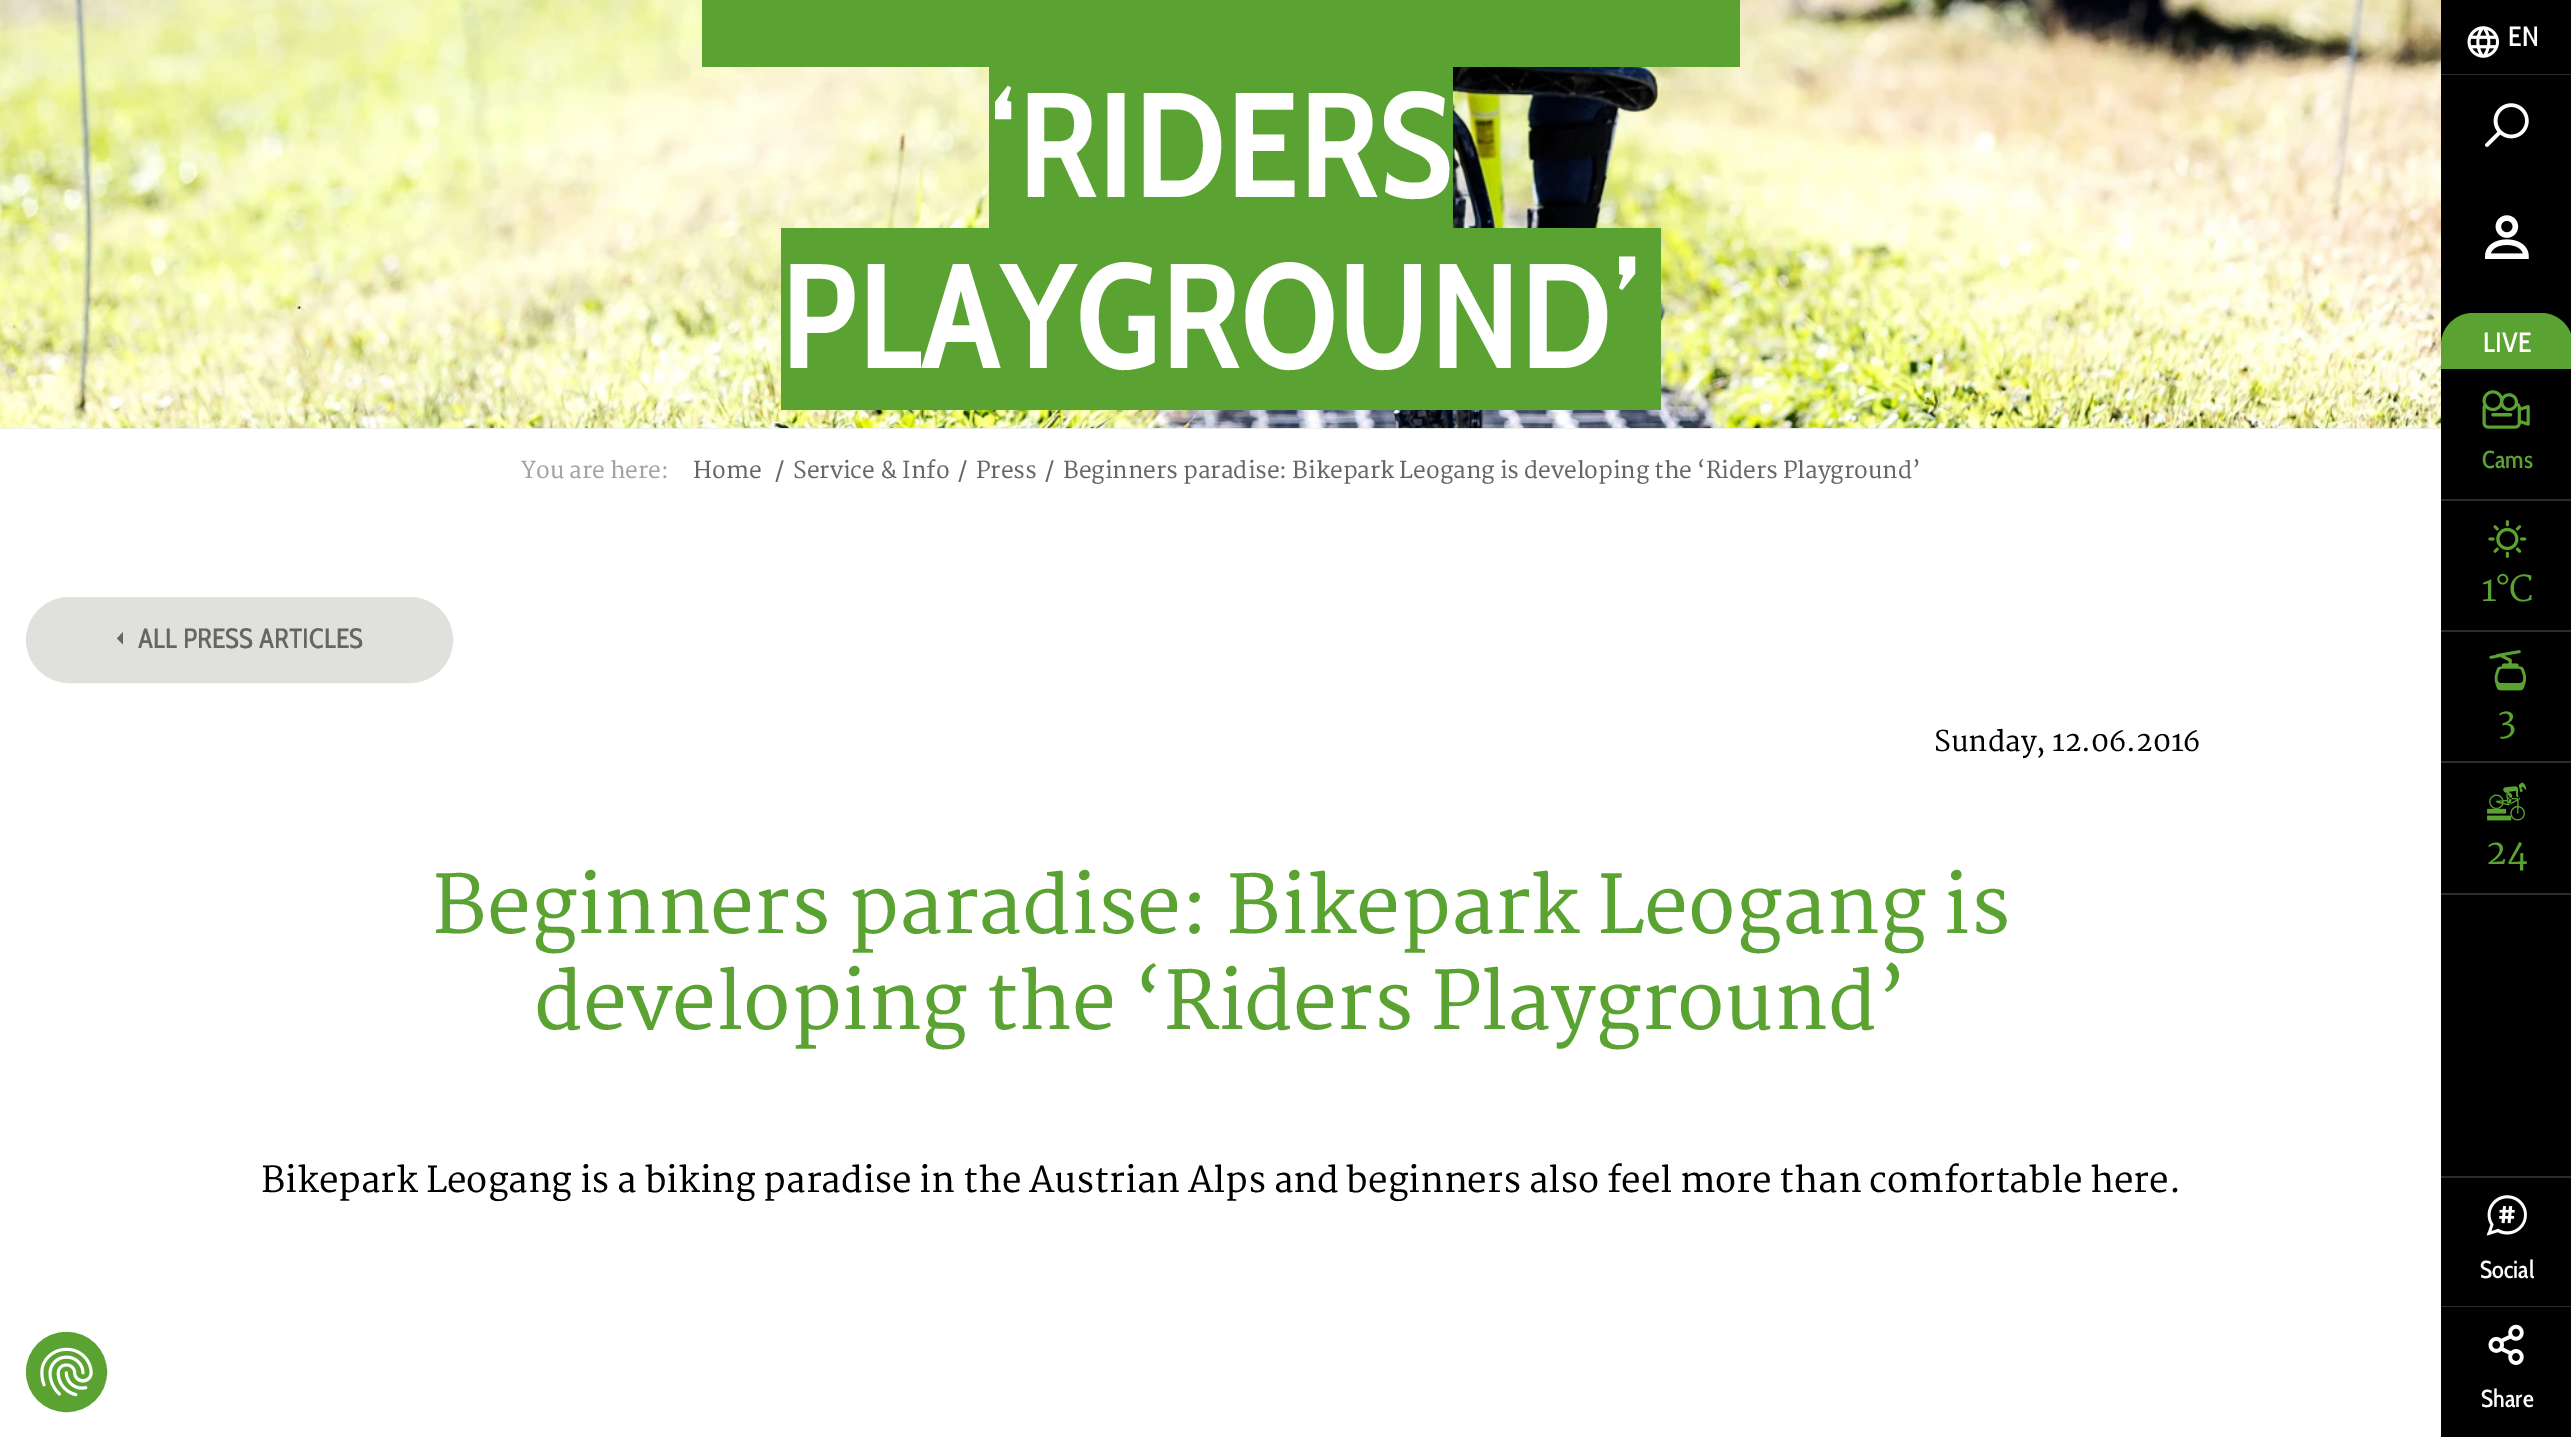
%!PS-Adobe-3.0
%%BoundingBox: 0 0 2571 1437
%%LanguageLevel: 3
%%Pages: 1
%%EndComments
%%BeginProlog
/m { moveto } bind def
/l { lineto } bind def
/c { curveto } bind def
/h { closepath } bind def
/f { fill } bind def
/S { stroke } bind def
/q { gsave } bind def
/Q { grestore } bind def
/w { setlinewidth } bind def
/fn { [ exch dup neg 0 0 3 -1 roll 0 0 ] selectfont } def
/tx { moveto show } def
/bx { rectfill } def
/rr { 5 dict begin { /r /h /w /y /x } { exch def } forall
  x r add y moveto x w add y 2 copy h add r arct x w add y h add x 1 index r arct
  x y h add x y r arct x y 2 copy exch w add exch r arct closepath end } def
/im { 5 dict begin { /h /w /y /x /name } { exch def } forall
  gsave x y translate w h scale
  w h 8 [w 0 0 h 0 0] name (r) file false 3 colorimage grestore end } def
%%EndProlog
%%BeginSetup
<< /PageSize [2571 1437] >> setpagedevice
%%EndSetup
%%Page: 1 1
0 1437 translate 1 -1 scale
4 setmiterlimit
0.937 0.941 0.929 setrgbcolor
0 0 2571 1437 bx
1 setgray
0 429 2441 1008 bx
0.353 0.639 0.196 setrgbcolor
27 1333 79 78 39 rr q f Q
2 w
S
(image0.raw) 40 1347 53 50 im
(image1.raw) 0 0 2441 429 im
989 67 464 161 bx
/CabinCondensed-SemiBold 148.75 fn
1 setgray
(‘RIDERS) 988 197 tx
0.353 0.639 0.196 setrgbcolor
702 0 1038 67 bx
781 228 880 182 bx
1 setgray
(PLAYGROUND’) 781 368 tx
/Martel-SemiBold 22.75 fn
0.639 setgray
(You are here:) 521 478 tx
0.4 setgray
(Home) 693 478 tx
(/) 775 478 tx
(Service & Info) 793 478 tx
(/) 958 478 tx
(Press) 976 478 tx
(/) 1045 478 tx
(Beginners paradise: Bikepark Leogang is developing the ‘Riders Playground’) 1063 478 tx
0.878 0.882 0.863 setrgbcolor
27 598 425 84 42 rr q f Q
S
0.4 setgray
123 632 m 123 644.5 l 117 638.5 l h f
/CabinCondensed-Medium 28 fn
(ALL PRESS ARTICLES) 138 648 tx
/Martel-SemiBold 28 fn
0 setgray
(Sunday, 12.06.2016) 1934 751 tx
/Martel-SemiBold 78.75 fn
0.353 0.639 0.196 setrgbcolor
(Beginners paradise: Bikepark Leogang is) 432 933 tx
(developing the ‘Riders Playground’) 534 1029 tx
/Martel-SemiBold 35 fn
0 setgray
(Bikepark Leogang is a biking paradise in the Austrian Alps and beginners also feel more than comfortable here.) 261 1192 tx
2441 0 130 1306 bx
0.173 setgray
2441 74 130 1 bx
(image2.raw) 2467 26 32 32 im
/CabinCondensed-Medium 28 fn
1 setgray
(EN) 2508 46 tx
(image3.raw) 2485 103 44 44 im
(image4.raw) 2485 215 44 44 im
0.353 0.639 0.196 setrgbcolor
2473 313 m 2541 313 l 2558.5 313 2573 327.5 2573 345 c 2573 369 l 2441 369 l 2441 345 l 2441 327.5 2455.5 313 2473 313 c h f
1 setgray
(LIVE) 2483 352 tx
0.173 setgray
2441 499 130 2 bx
(image5.raw) 2482 390 48 39 im
/CabinCondensed-Medium 24.5 fn
0.353 0.639 0.196 setrgbcolor
(Cams) 2482 468 tx
0.173 setgray
2441 630 130 2 bx
(image6.raw) 2488 520 39 38 im
/Martel-SemiBold 35 fn
0.353 0.639 0.196 setrgbcolor
(1°C) 2481 601 tx
0.173 setgray
2441 761 130 2 bx
(image7.raw) 2489 650 38 41 im
0.353 0.639 0.196 setrgbcolor
(3) 2498 733 tx
0.173 setgray
2441 893 130 2 bx
(image8.raw) 2487 782 40 39 im
0.353 0.639 0.196 setrgbcolor
(24) 2486 864 tx
0.173 setgray
2441 1176 130 2 bx
2441 1306 130 1 bx
(image9.raw) 2486 1195 41 41 im
/CabinCondensed-Medium 24.5 fn
1 setgray
(Social) 2480 1278 tx
0 setgray
2441 1307 130 130 bx
(image10.raw) 2488 1324 36 41 im
1 setgray
(Share) 2481 1407 tx
showpage
%%EOF
